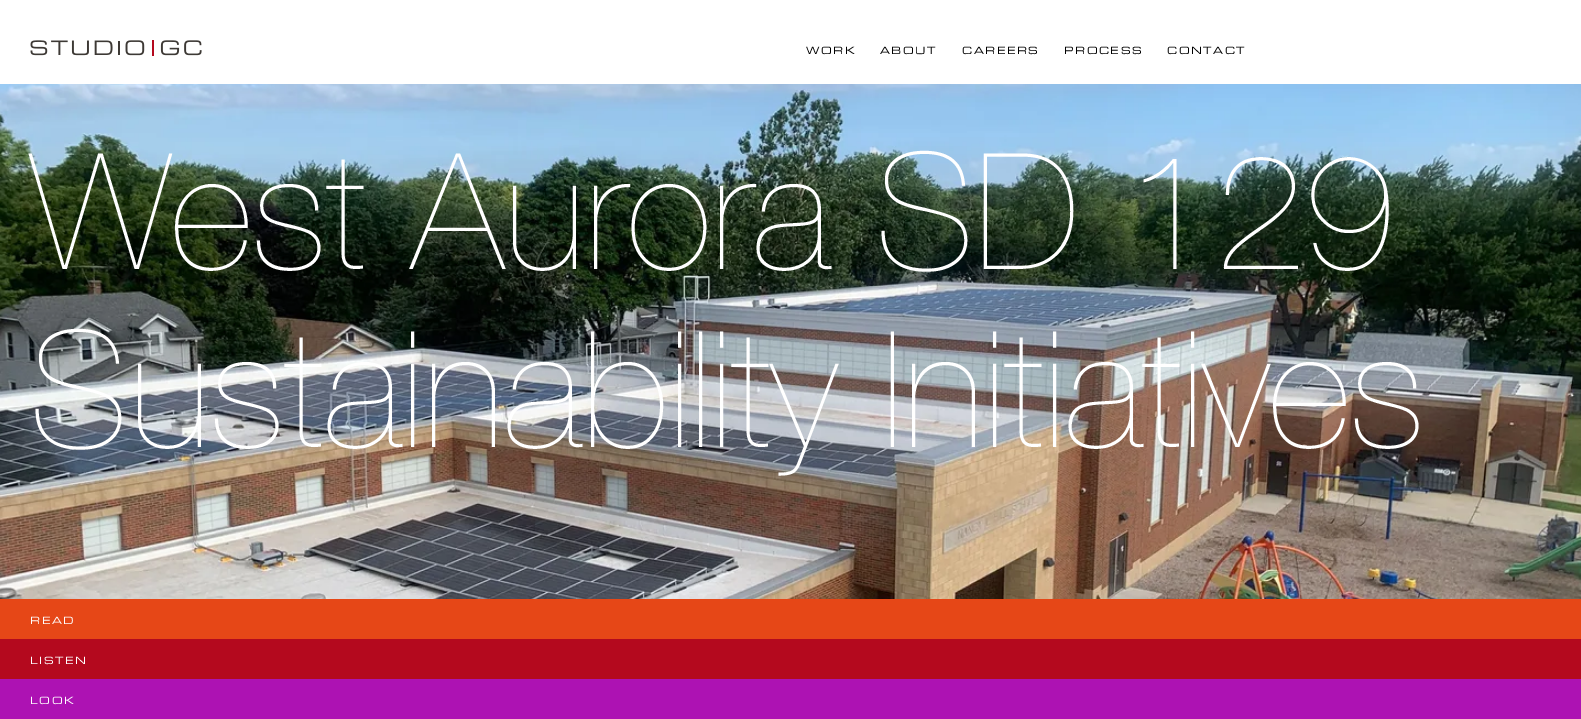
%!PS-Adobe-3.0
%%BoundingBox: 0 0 1581 719
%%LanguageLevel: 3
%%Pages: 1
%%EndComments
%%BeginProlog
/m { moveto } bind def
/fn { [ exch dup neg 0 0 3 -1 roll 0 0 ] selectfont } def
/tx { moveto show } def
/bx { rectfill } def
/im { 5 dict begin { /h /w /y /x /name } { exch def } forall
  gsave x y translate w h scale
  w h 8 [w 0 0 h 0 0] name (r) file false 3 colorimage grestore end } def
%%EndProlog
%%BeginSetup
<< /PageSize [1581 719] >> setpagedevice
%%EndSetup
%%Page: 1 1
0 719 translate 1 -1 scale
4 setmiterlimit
1 setgray
0 0 1581 719 bx
(image0.raw) 30 40 172 16 im
/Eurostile-Regular 10 fn
0 setgray
806 54 m 1.5 0 (WORK) ashow
880 54 m 1.5 0 (ABOUT) ashow
962 54 m 1.5 0 (CAREERS) ashow
1064 54 m 1.5 0 (PROCESS) ashow
1167 54 m 1.5 0 (CONTACT) ashow
(image1.raw) 0 84 1581 515 im
/HelveticaNeue-Light 162 fn
1 setgray
(West Aurora SD 129) 30 269 tx
(Sustainability Initiatives) 30 447 tx
0.902 0.278 0.09 setrgbcolor
0 599 1581 40 bx
/Eurostile-Regular 10 fn
1 setgray
30 624 m 1.5 0 (READ) ashow
0.706 0.035 0.118 setrgbcolor
0 639 1581 40 bx
1 setgray
30 664 m 1.5 0 (LISTEN) ashow
0.678 0.071 0.702 setrgbcolor
0 679 1581 40 bx
1 setgray
30 704 m 1.5 0 (LOOK) ashow
showpage
%%EOF
